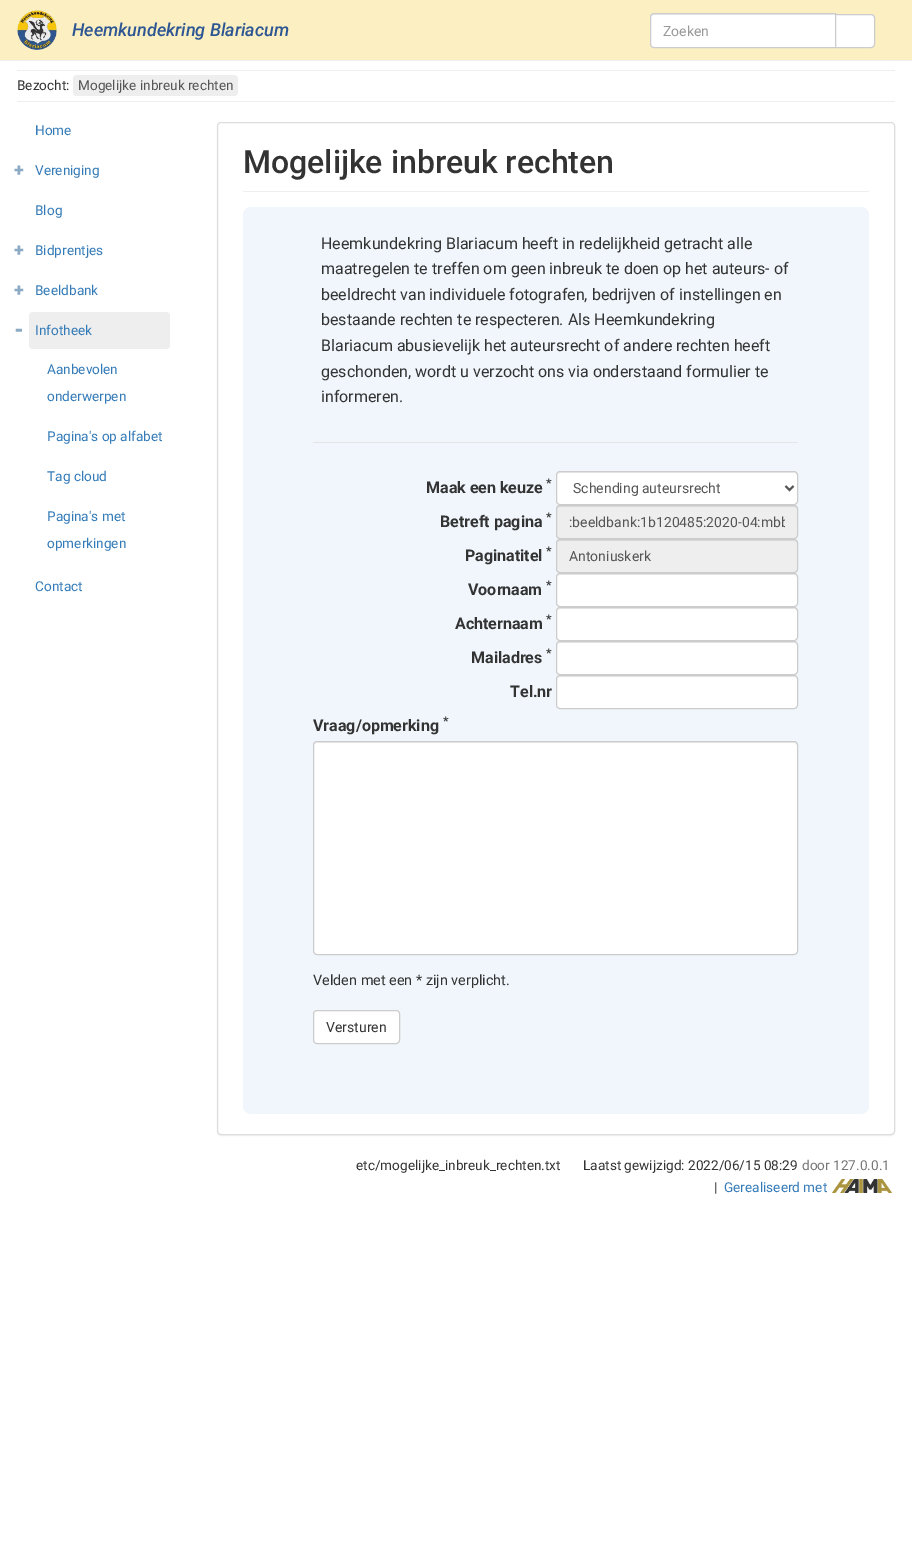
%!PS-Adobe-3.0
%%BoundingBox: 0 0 912 1546
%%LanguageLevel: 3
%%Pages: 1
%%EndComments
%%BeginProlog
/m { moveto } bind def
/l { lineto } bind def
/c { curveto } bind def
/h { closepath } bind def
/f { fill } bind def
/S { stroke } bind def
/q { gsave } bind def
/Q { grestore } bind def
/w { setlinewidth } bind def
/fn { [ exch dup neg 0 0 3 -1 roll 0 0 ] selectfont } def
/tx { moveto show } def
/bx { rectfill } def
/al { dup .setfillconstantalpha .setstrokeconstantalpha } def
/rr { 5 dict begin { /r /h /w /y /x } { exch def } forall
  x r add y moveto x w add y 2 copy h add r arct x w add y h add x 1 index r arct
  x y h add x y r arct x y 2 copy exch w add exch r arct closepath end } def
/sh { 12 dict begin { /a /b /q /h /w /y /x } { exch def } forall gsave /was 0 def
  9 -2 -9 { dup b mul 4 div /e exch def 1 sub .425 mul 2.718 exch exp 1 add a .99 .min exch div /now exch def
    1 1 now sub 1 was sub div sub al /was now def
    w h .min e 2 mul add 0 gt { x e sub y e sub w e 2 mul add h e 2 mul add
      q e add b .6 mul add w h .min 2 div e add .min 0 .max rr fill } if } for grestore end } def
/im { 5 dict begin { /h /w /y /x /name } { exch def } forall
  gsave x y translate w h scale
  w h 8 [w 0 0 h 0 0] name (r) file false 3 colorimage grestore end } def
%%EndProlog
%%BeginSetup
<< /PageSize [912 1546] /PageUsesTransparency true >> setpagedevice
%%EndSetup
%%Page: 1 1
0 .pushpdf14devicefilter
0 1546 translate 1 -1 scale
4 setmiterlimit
1 setgray
0 0 912 1546 bx
0.988 0.941 0.765 setrgbcolor
0 0 912 60 bx
0.937 setgray
0 60 912 1 bx
(image0.raw) 17 10 40 40 im
/Roboto-MediumItalic 18 fn
0.176 0.337 0.573 setrgbcolor
(Heemkundekring Blariacum) 72 36 tx
1 setgray
654 13 m 836 13 l 836 48 l 654 48 l 652 48 650 46 650 44 c 650 17 l 650 15 652 13 654 13 c h f
0.925 setgray
654 15 m 835 15 l 835 14 l 653 14 l 651 15 651 16 651 18 c 651 16 652 15 654 15 c h f
0.8 setgray
654 13.5 m 835.5 13.5 l 835.5 47.5 l 654 47.5 l 652 47.5 650.5 46 650.5 44 c 650.5 17 l 650.5 15 652 13.5 654 13.5 c h S
/Roboto-Regular 14 fn
0.6 setgray
(Zoeken) 663 36 tx
1 setgray
835.5 14.5 m 871 14.5 l 873 14.5 874.5 16 874.5 18 c 874.5 44 l 874.5 46 873 47.5 871 47.5 c 835.5 47.5 l h q f Q
0.8 setgray
S
0.933 setgray
17 70 878 1 bx
/Roboto-Regular 13.6 fn
0.2 setgray
(Bezocht:) 17 90 tx
0.933 setgray
73 75 165 21 4 rr f
0.333 setgray
(Mogelijke inbreuk rechten) 78 90 tx
0.933 setgray
17 101 878 1 bx
0.2 0.478 0.718 setrgbcolor
(Home) 35 135 tx
/Roboto-Black 18 fn
0.549 0.667 0.765 setrgbcolor
(+) 14 176 tx
/Roboto-Regular 13.6 fn
0.2 0.478 0.718 setrgbcolor
(Vereniging) 35 175 tx
(Blog) 35 215 tx
/Roboto-Black 18 fn
0.549 0.667 0.765 setrgbcolor
(+) 14 256 tx
/Roboto-Regular 13.6 fn
0.2 0.478 0.718 setrgbcolor
(Bidprentjes) 35 255 tx
/Roboto-Black 18 fn
0.549 0.667 0.765 setrgbcolor
(+) 14 296 tx
/Roboto-Regular 13.6 fn
0.2 0.478 0.718 setrgbcolor
(Beeldbank) 35 295 tx
/Roboto-Black 22 fn
0.549 0.667 0.765 setrgbcolor
(-) 14 337 tx
0.933 setgray
29 312 141 37 4 rr f
/Roboto-Regular 13.6 fn
0.2 0.478 0.718 setrgbcolor
(Infotheek) 35 335 tx
(Aanbevolen) 47 374 tx
(onderwerpen) 47 401 tx
(Pagina's op alfabet) 47 441 tx
(Tag cloud) 47 481 tx
(Pagina's met) 47 521 tx
(opmerkingen) 47 548 tx
(Contact) 35 591 tx
0 setgray
217 123 678 1013 4 0.5 0.05 sh
1 setgray
217.5 122.5 677 1012 3.5 rr q f Q
0.867 setgray
S
0.933 setgray
243 191 626 1 bx
/Roboto-Medium 32 fn
0.2 setgray
(Mogelijke inbreuk rechten) 243 173 tx
0.941 0.965 0.984 setrgbcolor
243 207 626 907 8 rr f
/Roboto-Regular 16 fn
0.2 setgray
(Heemkundekring Blariacum heeft in redelijkheid getracht alle) 321 249 tx
(maatregelen te treffen om geen inbreuk te doen op het auteurs- of) 321 274 tx
(beeldrecht van individuele fotografen, bedrijven of instellingen en) 321 300 tx
(bestaande rechten te respecteren. Als Heemkundekring) 321 325 tx
(Blariacum abusievelijk het auteursrecht of andere rechten heeft) 321 351 tx
(geschonden, wordt u verzocht ons via onderstaand formulier te) 321 377 tx
(informeren.) 321 402 tx
0.898 setgray
313 442 485 1 bx
/Roboto-Bold 16 fn
0.2 setgray
(Maak een keuze) 426 493 tx
/Roboto-Bold 12 fn
(*) 546 487 tx
1 setgray
556 471 242 34 4 rr f
0.925 setgray
560 473 m 795 473 l 797 474 l 797 476 l 797 474 796 472 794 472 c 560 472 l 558 472 557 474 557 476 c 557 474 558 473 560 473 c h f
0.8 setgray
556.5 471.5 241 33 3.5 rr S
0.333 setgray
2 w
785.5 486 m 789.5 490 l 793.5 486 l S
/Roboto-Regular 14 fn
(Schending auteursrecht) 573 493 tx
/Roboto-Bold 16 fn
0.2 setgray
(Betreft pagina) 440 527 tx
/Roboto-Bold 12 fn
(*) 546 521 tx
0.933 setgray
556 505 242 34 4 rr f
0.863 setgray
560 507 m 795 507 l 797 508 l 797 510 l 797 508 796 506 794 506 c 560 506 l 558 506 557 508 557 510 c 557 508 558 507 560 507 c h f
0.8 setgray
1 w
556.5 505.5 241 33 3.5 rr S
q
569 514 216 16 rectclip
/Roboto-Regular 14 fn
0.333 setgray
(:beeldbank:1b120485:2020-04:mbb) 569 527 tx
Q
/Roboto-Bold 16 fn
0.2 setgray
(Paginatitel) 465 561 tx
/Roboto-Bold 12 fn
(*) 546 555 tx
0.933 setgray
556 539 242 34 4 rr f
0.863 setgray
560 541 m 795 541 l 797 542 l 797 544 l 797 542 796 540 794 540 c 560 540 l 558 540 557 542 557 544 c 557 542 558 541 560 541 c h f
0.8 setgray
556.5 539.5 241 33 3.5 rr S
/Roboto-Regular 14 fn
0.333 setgray
(Antoniuskerk) 569 561 tx
/Roboto-Bold 16 fn
0.2 setgray
(Voornaam) 468 595 tx
/Roboto-Bold 12 fn
(*) 546 589 tx
1 setgray
556 573 242 34 4 rr f
0.925 setgray
560 575 m 795 575 l 797 576 l 797 578 l 797 576 796 574 794 574 c 560 574 l 558 574 557 576 557 578 c 557 576 558 575 560 575 c h f
0.8 setgray
556.5 573.5 241 33 3.5 rr S
/Roboto-Bold 16 fn
0.2 setgray
(Achternaam) 455 629 tx
/Roboto-Bold 12 fn
(*) 546 623 tx
1 setgray
556 607 242 34 4 rr f
0.925 setgray
560 609 m 795 609 l 797 610 l 797 612 l 797 610 796 608 794 608 c 560 608 l 558 608 557 610 557 612 c 557 610 558 609 560 609 c h f
0.8 setgray
556.5 607.5 241 33 3.5 rr S
/Roboto-Bold 16 fn
0.2 setgray
(Mailadres) 471 663 tx
/Roboto-Bold 12 fn
(*) 546 657 tx
1 setgray
556 641 242 34 4 rr f
0.925 setgray
560 643 m 795 643 l 797 644 l 797 646 l 797 644 796 642 794 642 c 560 642 l 558 642 557 644 557 646 c 557 644 558 643 560 643 c h f
0.8 setgray
556.5 641.5 241 33 3.5 rr S
/Roboto-Bold 16 fn
0.2 setgray
(Tel.nr) 510 697 tx
1 setgray
556 675 242 34 4 rr f
0.925 setgray
560 677 m 795 677 l 797 678 l 797 680 l 797 678 796 676 794 676 c 560 676 l 558 676 557 678 557 680 c 557 678 558 677 560 677 c h f
0.8 setgray
556.5 675.5 241 33 3.5 rr S
0.2 setgray
(Vraag/opmerking) 313 731 tx
/Roboto-Bold 12 fn
(*) 443 725 tx
1 setgray
313 741 485 214 4 rr f
0.925 setgray
317 743 m 794 743 l 796 743 797 744 797 746 c 797 745 l 797 743 796 742 794 742 c 317 742 l 315 742 314 743 314 745 c 314 746 l 314 744 315 743 317 743 c h f
0.8 setgray
313.5 741.5 484 213 3.5 rr S
/Roboto-Regular 14.4 fn
0.2 setgray
(Velden met een * zijn verplicht.) 313 985 tx
1 setgray
313.5 1010.5 86 33 3.5 rr q f Q
0.8 setgray
S
/Roboto-Regular 14 fn
0.2 setgray
(Versturen) 326 1032 tx
/Roboto-Regular 13.6 fn
(etc/mogelijke_inbreuk_rechten.txt) 356 1170 tx
(Laatst gewijzigd: 2022/06/15 08:29) 583 1170 tx
0.467 setgray
(door 127.0.0.1) 802 1170 tx
0.2 setgray
(|) 714 1192 tx
0.2 0.478 0.718 setrgbcolor
(Gerealiseerd met) 724 1192 tx
(image1.raw) 832 1179 60 14 im
.poppdf14devicefilter showpage
%%EOF
